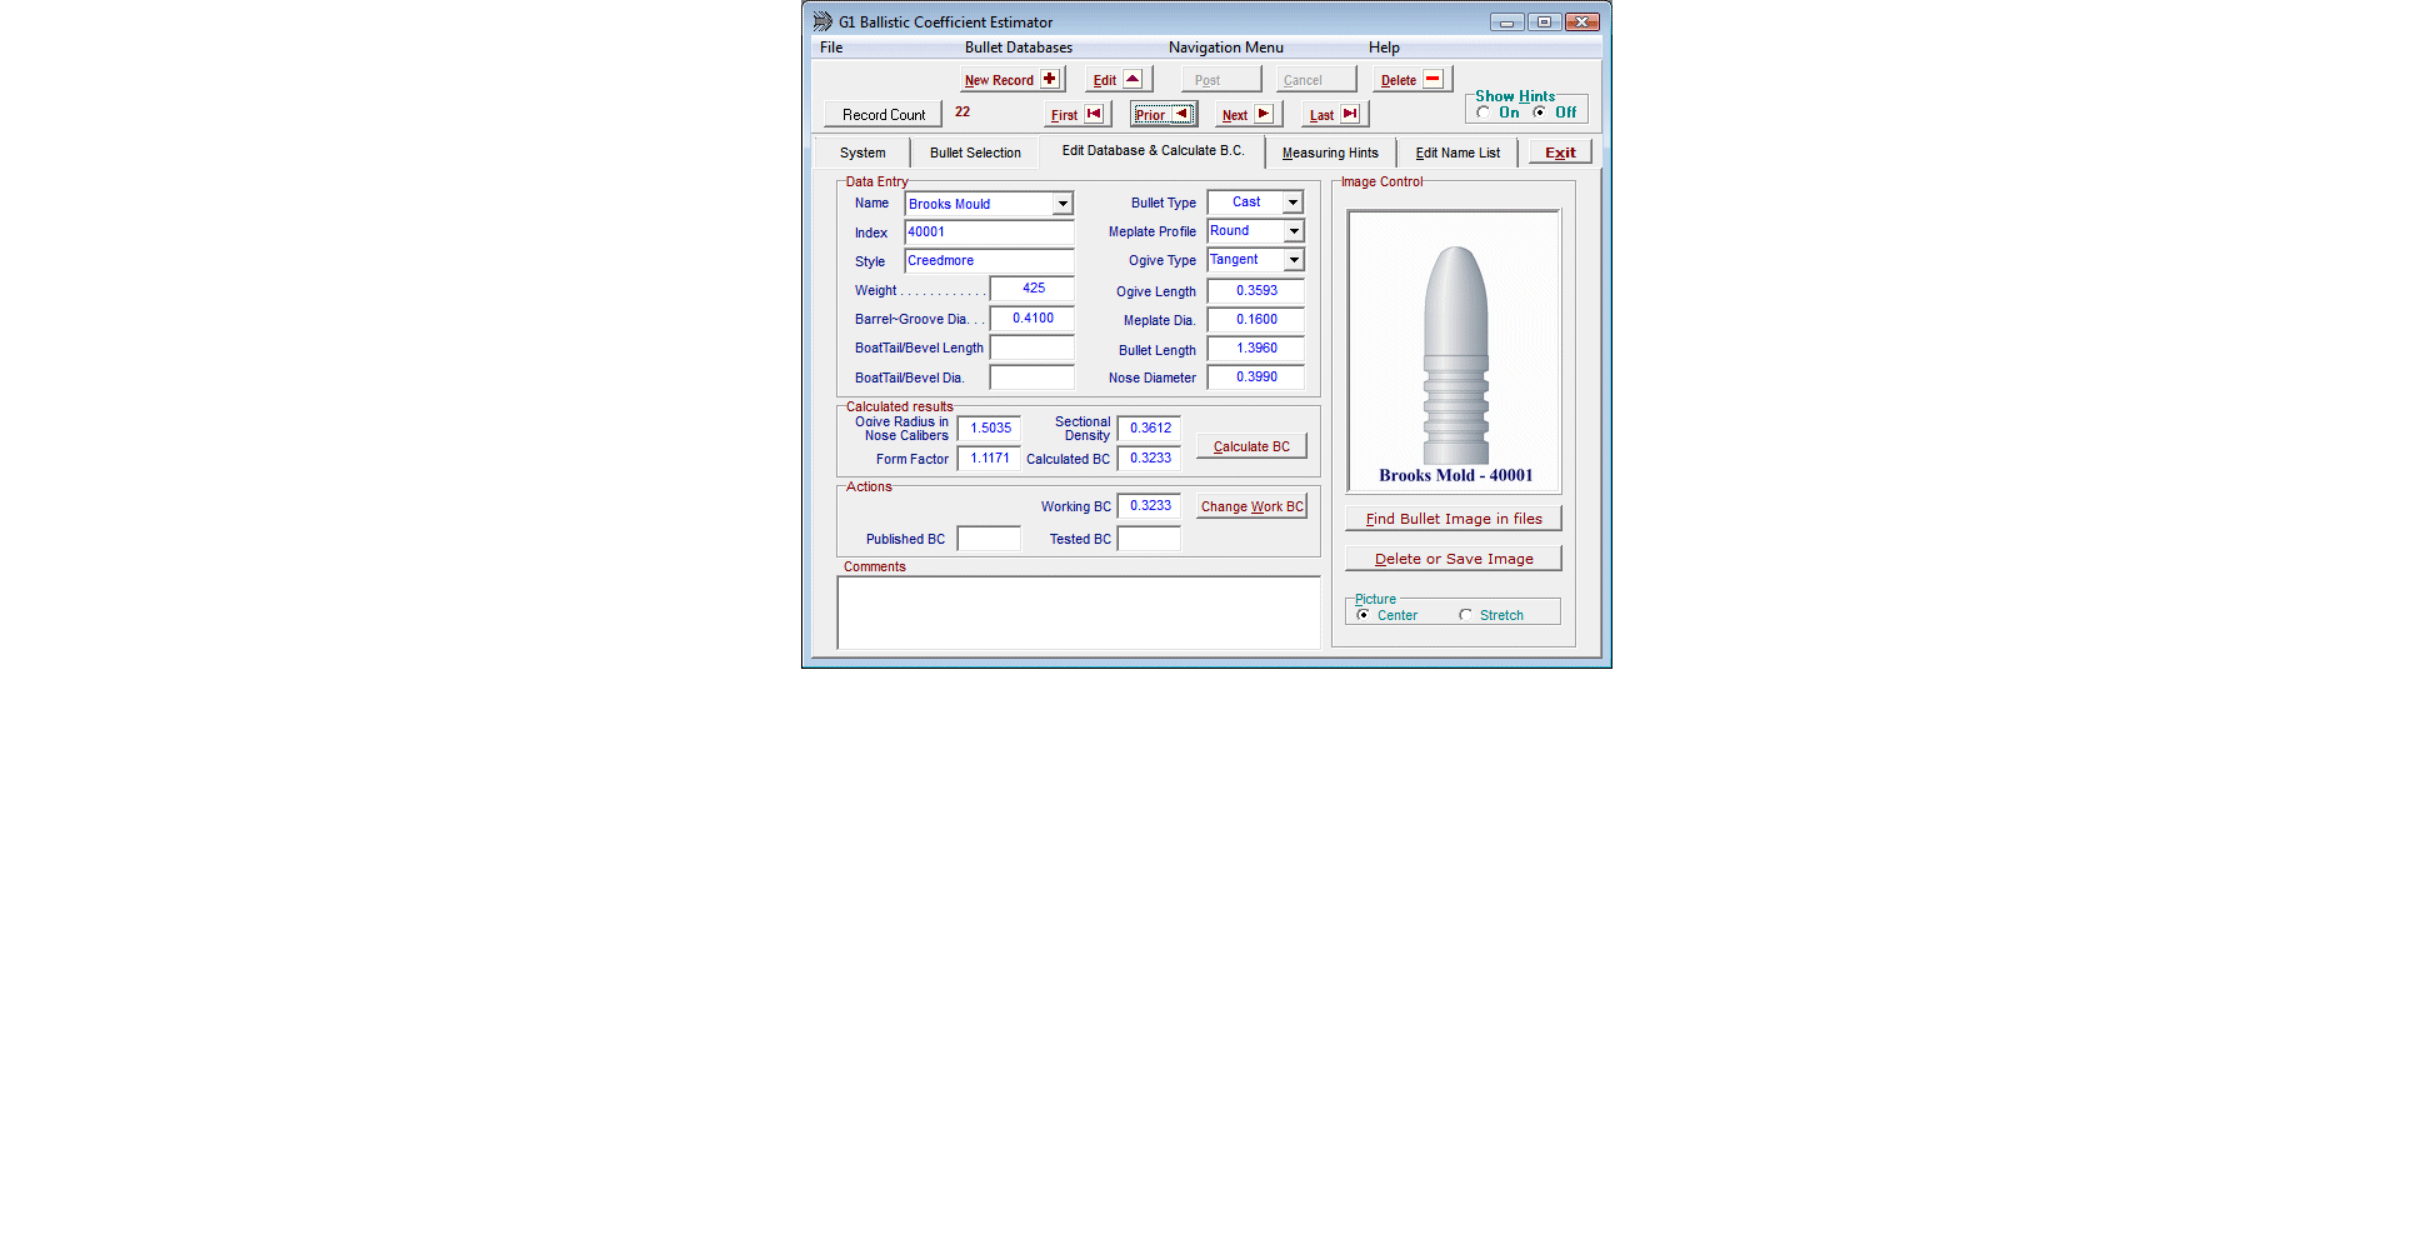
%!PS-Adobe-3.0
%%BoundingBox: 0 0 2413 1249
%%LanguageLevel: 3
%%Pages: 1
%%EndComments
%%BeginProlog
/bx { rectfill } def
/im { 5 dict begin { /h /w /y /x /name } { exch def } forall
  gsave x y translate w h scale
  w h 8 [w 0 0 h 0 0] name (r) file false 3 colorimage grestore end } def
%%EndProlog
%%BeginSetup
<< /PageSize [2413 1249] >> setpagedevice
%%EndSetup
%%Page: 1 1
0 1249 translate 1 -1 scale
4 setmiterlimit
1 setgray
0 0 2413 1249 bx
(image0.raw) 801 0 812 669 im
showpage
%%EOF
